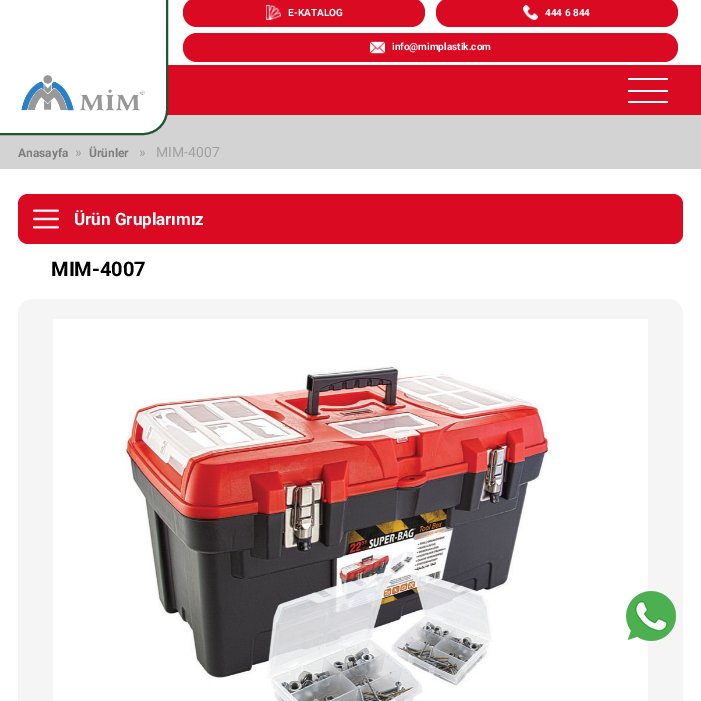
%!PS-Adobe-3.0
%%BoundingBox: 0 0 701 701
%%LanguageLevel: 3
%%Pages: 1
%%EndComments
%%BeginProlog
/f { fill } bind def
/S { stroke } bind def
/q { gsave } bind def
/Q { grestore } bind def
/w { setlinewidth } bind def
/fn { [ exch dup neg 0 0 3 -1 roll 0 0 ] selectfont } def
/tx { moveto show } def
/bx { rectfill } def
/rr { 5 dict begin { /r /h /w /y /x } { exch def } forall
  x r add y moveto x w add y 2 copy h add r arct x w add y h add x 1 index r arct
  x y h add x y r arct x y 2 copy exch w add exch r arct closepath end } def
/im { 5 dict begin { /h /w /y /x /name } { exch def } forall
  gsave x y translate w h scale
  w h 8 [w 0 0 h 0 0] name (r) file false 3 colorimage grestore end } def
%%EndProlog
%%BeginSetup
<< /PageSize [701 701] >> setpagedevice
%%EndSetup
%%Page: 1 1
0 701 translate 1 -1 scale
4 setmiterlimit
1 setgray
0 0 701 701 bx
0.855 0.039 0.133 setrgbcolor
167 65 534 50 bx
0.827 setgray
0 115 701 54 bx
1 setgray
-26 -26 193 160 24 rr q f Q
0.118 0.337 0.192 setrgbcolor
2 w
S
(image0.raw) 21 75 124 36 im
1 setgray
628 78 40 2 bx
628 90 40 2 bx
628 101 40 2 bx
0.855 0.039 0.133 setrgbcolor
183 -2 242 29 14 rr f
(image1.raw) 266 5 15 15 im
/Roboto-Bold 10 fn
1 setgray
(E-KATALOG) 288 16 tx
0.855 0.039 0.133 setrgbcolor
436 -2 242 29 14 rr f
(image2.raw) 523 5 15 15 im
1 setgray
(444 6 844) 545 16 tx
0.855 0.039 0.133 setrgbcolor
183 33 495 29 14 rr f
(image3.raw) 370 41 15 13 im
1 setgray
(info@mimplastik.com) 392 50 tx
/Roboto-Bold 12 fn
0.49 setgray
(Anasayfa) 18 157 tx
/Roboto-Regular 14 fn
0.631 0.627 0.627 setrgbcolor
(») 75 157 tx
/Roboto-Bold 12 fn
0.49 setgray
(Ürünler) 89 157 tx
/Roboto-Regular 14 fn
0.631 0.627 0.627 setrgbcolor
(»   MIM-4007) 139 157 tx
0.855 0.039 0.133 setrgbcolor
18 194 665 50 10 rr f
(image4.raw) 33 209 26 20 im
/Roboto-Bold 17 fn
1 setgray
(Ürün Gruplarımız) 74 225 tx
/Roboto-Bold 20 fn
0 setgray
(MIM-4007) 51 276 tx
0.961 setgray
18 299 665 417 15 rr f
(image5.raw) 53 319 595 382 im
(image6.raw) 626 591 50 50 im
showpage
%%EOF
